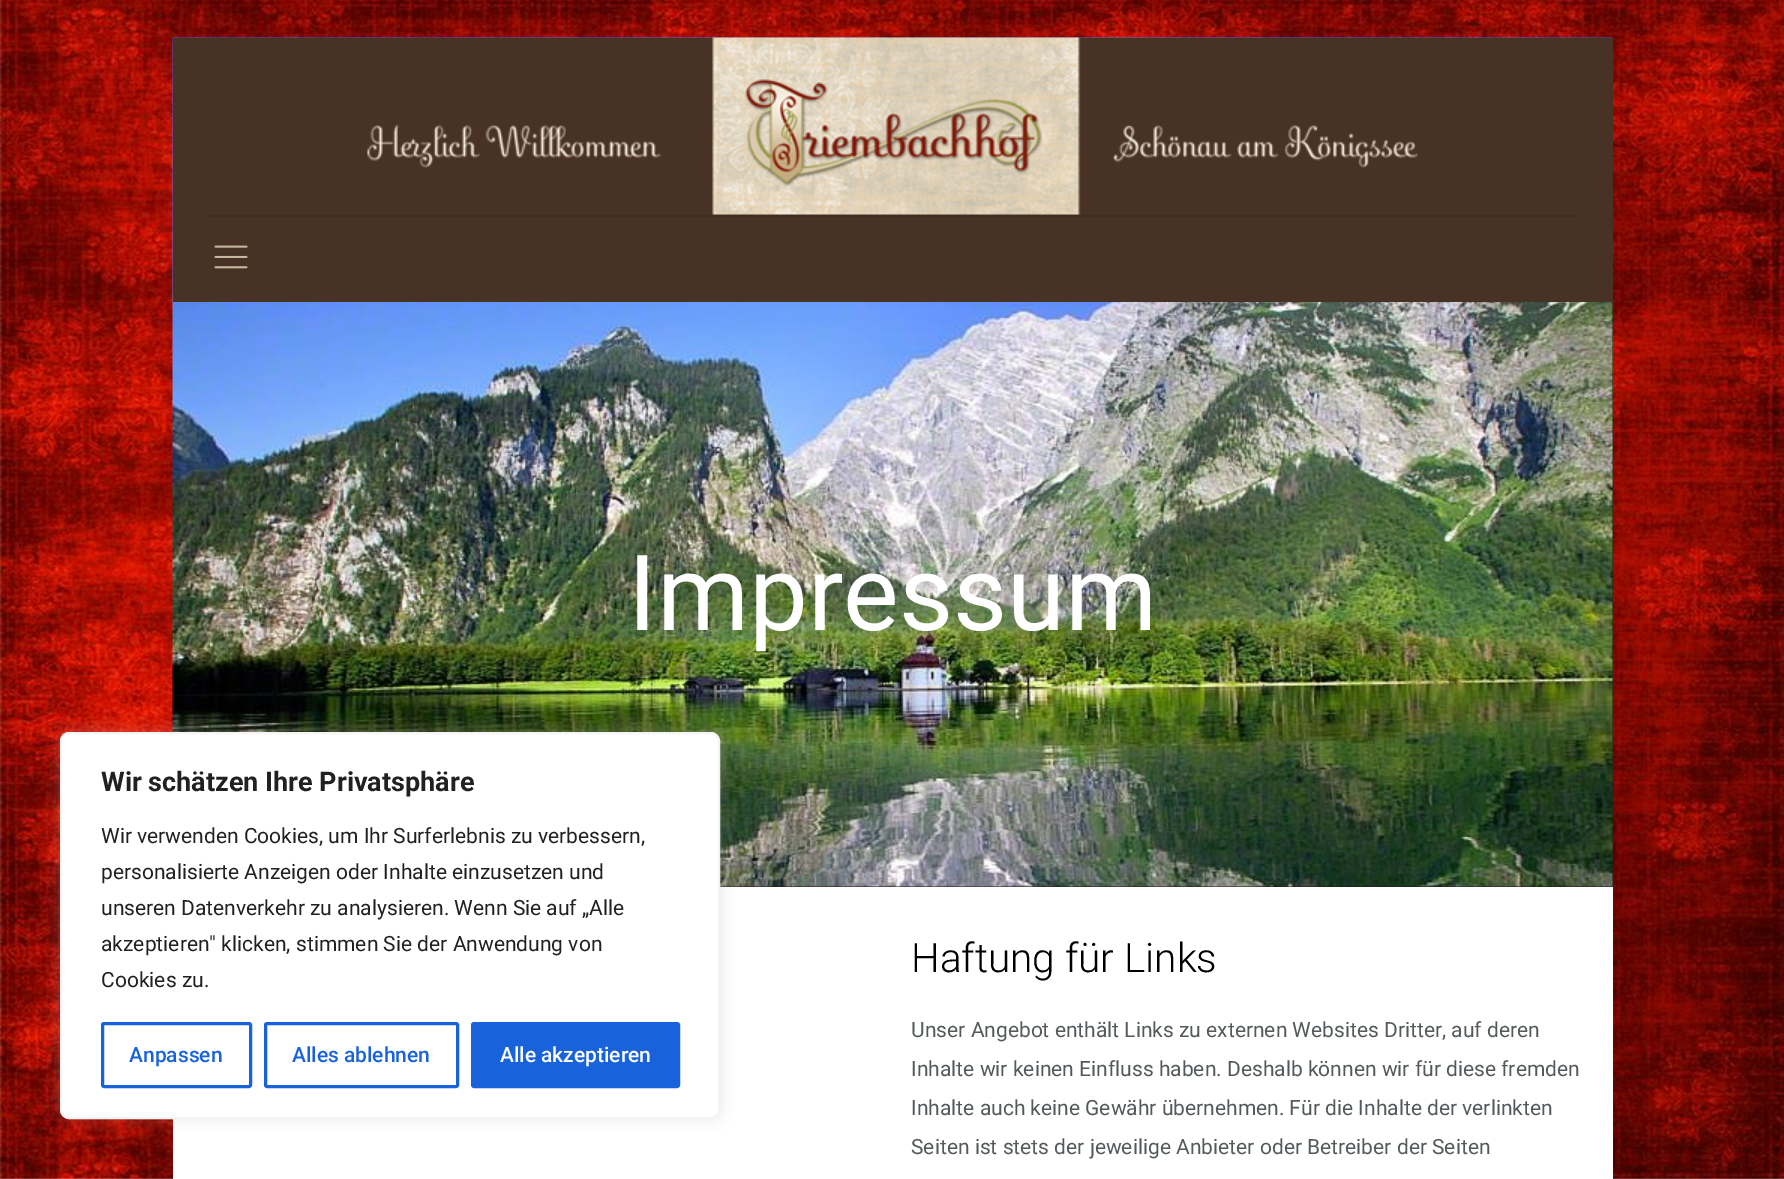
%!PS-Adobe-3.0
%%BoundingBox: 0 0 1784 1179
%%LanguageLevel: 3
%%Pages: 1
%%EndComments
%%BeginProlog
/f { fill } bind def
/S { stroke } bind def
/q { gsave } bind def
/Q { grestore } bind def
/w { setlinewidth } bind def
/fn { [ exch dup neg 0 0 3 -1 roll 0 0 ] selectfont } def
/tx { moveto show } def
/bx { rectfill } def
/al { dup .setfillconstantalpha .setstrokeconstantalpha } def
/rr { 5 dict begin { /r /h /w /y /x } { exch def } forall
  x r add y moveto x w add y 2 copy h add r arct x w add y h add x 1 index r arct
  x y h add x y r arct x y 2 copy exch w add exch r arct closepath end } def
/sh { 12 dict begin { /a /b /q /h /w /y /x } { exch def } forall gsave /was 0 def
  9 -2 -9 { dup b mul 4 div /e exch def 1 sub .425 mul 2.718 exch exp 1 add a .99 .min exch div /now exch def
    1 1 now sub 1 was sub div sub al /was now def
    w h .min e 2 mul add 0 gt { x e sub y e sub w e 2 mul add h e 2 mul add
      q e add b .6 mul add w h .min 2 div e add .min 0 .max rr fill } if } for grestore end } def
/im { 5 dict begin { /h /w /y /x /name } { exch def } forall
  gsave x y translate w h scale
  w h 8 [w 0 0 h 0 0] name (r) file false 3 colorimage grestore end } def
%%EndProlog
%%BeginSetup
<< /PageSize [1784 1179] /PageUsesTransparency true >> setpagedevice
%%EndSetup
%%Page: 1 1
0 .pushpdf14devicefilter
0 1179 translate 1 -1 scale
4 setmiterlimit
1 setgray
0 0 1784 1179 bx
(image0.raw) 0 0 1784 1179 im
0 setgray
173 38 1440 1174 0 11 0.06 sh
1 setgray
173 887 1440 292 bx
0.153 0.098 0.071 setrgbcolor
720 302 893 585 bx
(image1.raw) 172 37 1441 850 im
0.675 0.671 0.671 setrgbcolor
60 731 660 387 9 7.5 0.3 sh
1 setgray
61 733 658 385 8 rr q f Q
0.957 setgray
2 w
S
/Roboto-Bold 27 fn
0.129 setgray
(Wir schätzen Ihre Privatsphäre) 101 791 tx
/Roboto-Regular 21 fn
(Wir verwenden Cookies, um Ihr Surferlebnis zu verbessern,) 101 843 tx
(personalisierte Anzeigen oder Inhalte einzusetzen und) 101 879 tx
(unseren Datenverkehr zu analysieren. Wenn Sie auf „Alle) 101 915 tx
(akzeptieren" klicken, stimmen Sie der Anwendung von) 101 951 tx
(Cookies zu.) 101 987 tx
0.094 0.388 0.863 setrgbcolor
3 w
102.5 1023.5 148 63 1.5 rr S
/Roboto-Medium 21 fn
(Anpassen) 129 1062 tx
265.5 1023.5 192 63 1.5 rr S
(Alles ablehnen) 292 1062 tx
472.5 1023.5 206 63 1.5 rr q f Q
S
1 setgray
(Alle akzeptieren) 500 1062 tx
0.282 0.192 0.145 setrgbcolor
173 38 1440 264 bx
0.259 0.176 0.133 setrgbcolor
206 215 1374 2 bx
(image2.raw) 367 37 1051 178 im
(image3.raw) 214 245 34 24 im
/Roboto-Regular 105 fn
1 setgray
(Impressum) 628 630 tx
/Roboto-Light 40.5 fn
0 setgray
(Haftung für Links) 911 972 tx
/Roboto-Regular 21 fn
0.329 0.353 0.361 setrgbcolor
(Unser Angebot enthält Links zu externen Websites Dritter, auf deren) 911 1037 tx
(Inhalte wir keinen Einfluss haben. Deshalb können wir für diese fremden) 911 1076 tx
(Inhalte auch keine Gewähr übernehmen. Für die Inhalte der verlinkten) 911 1115 tx
(Seiten ist stets der jeweilige Anbieter oder Betreiber der Seiten) 911 1154 tx
.poppdf14devicefilter showpage
%%EOF
